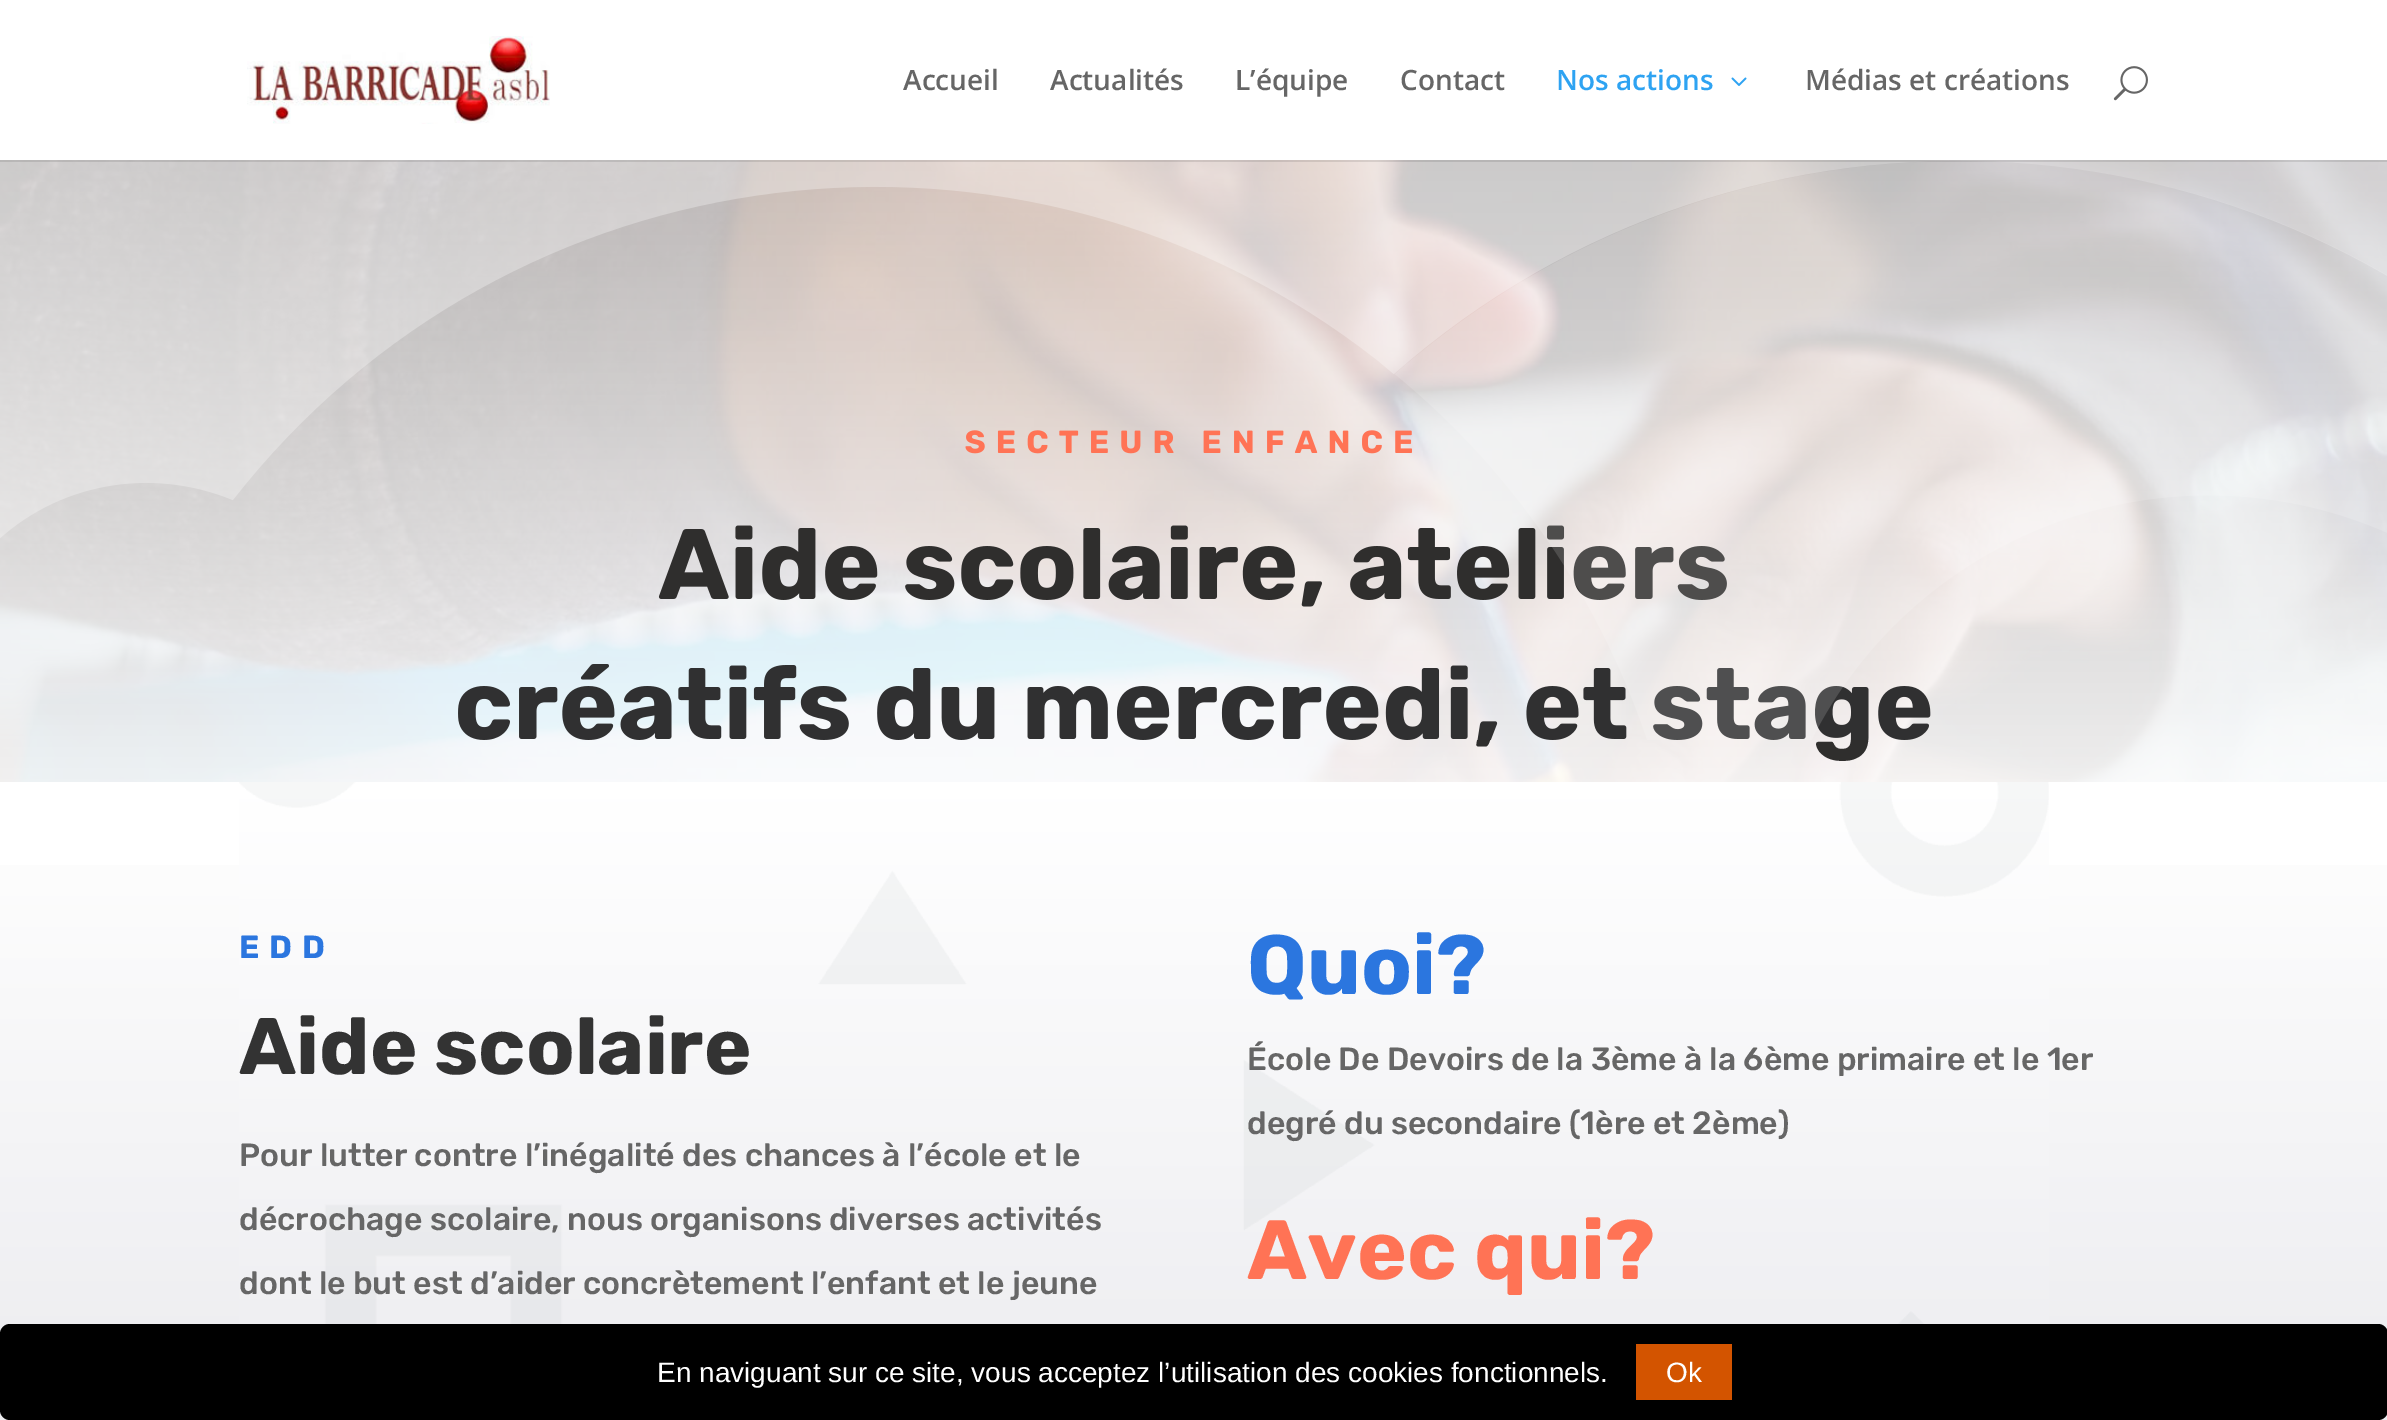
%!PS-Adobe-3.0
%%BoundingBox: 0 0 2387 1420
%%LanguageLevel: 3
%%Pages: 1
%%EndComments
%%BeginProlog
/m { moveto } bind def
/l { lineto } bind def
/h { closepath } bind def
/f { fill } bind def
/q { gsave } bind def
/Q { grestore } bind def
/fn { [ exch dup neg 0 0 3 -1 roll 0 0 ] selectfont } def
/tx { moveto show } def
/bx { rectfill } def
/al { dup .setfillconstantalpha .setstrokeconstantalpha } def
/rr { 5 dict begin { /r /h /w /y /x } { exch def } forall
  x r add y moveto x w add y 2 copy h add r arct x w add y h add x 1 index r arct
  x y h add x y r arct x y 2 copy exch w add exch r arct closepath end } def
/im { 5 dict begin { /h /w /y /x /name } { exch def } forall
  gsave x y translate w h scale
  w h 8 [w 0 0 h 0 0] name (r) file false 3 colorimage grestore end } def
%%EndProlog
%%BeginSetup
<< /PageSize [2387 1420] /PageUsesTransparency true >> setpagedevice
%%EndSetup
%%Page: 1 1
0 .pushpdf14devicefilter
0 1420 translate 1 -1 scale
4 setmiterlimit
1 setgray
0 0 2387 1420 bx
(image3.raw) 0 160 2387 622 im
/Rubik-Light 32 fn
1 0.451 0.333 setrgbcolor
965 453 m 10 0 (SECTEUR ENFANCE) ashow
/Rubik-Light 100 fn
0.184 0.18 0.176 setrgbcolor
(Aide scolaire, ateliers) 658 599 tx
(créatifs du mercredi, et stage) 454 739 tx
(image4.raw) 0 160 2387 580 im
0.1 al
0 setgray
0 160 2387 2 bx
1 al
(image0.raw) 247 36 303 88 im
/OpenSans-SemiBold 28 fn
0.4 setgray
(Accueil) 903 90 tx
(Actualités) 1050 90 tx
(L’équipe) 1235 90 tx
(Contact) 1400 90 tx
0.18 0.639 0.949 setrgbcolor
(Nos actions) 1556 90 tx
(image1.raw) 1731 77 16 9 im
0.4 setgray
(Médias et créations) 1805 90 tx
(image2.raw) 2113 66 35 35 im
q 0 865 m 2387 865 l 2387 1420 l 0 1420 l h clip newpath
<< /ShadingType 2 /ColorSpace /DeviceRGB /Coords [1194 782 1194 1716] /Extend [true true] /Function << /FunctionType 2 /Domain [0 1] /C0 [1 1 1] /C1 [0.89 0.89 0.91] /N 1 >> >> shfill Q
(image5.raw) 239 782 1810 542 im
/Rubik-Light 32 fn
0.169 0.463 0.875 setrgbcolor
239 958 m 10 0 (EDD) ashow
/Rubik-Light 80 fn
0.2 setgray
(Aide scolaire) 239 1074 tx
/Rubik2-Light 32 fn
0.4 setgray
(Pour lutter contre l’inégalité des chances à l’école et le) 239 1166 tx
(décrochage scolaire, nous organisons diverses activités) 239 1230 tx
(dont le but est d’aider concrètement l’enfant et le jeune) 239 1294 tx
/Rubik-Light 84 fn
0.169 0.463 0.875 setrgbcolor
(Quoi?) 1247 994 tx
/Rubik2-Light 32 fn
0.4 setgray
(École De Devoirs de la 3ème à la 6ème primaire et le 1er) 1247 1070 tx
(degré du secondaire \(1ère et 2ème\)) 1247 1134 tx
/Rubik-Light 84 fn
1 0.451 0.333 setrgbcolor
(Avec qui?) 1247 1279 tx
0 setgray
0 1324 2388 96 10 rr f
/LiberationSans-Regular 28 fn
1 setgray
(En naviguant sur ce site, vous acceptez l’utilisation des cookies fonctionnels.) 657 1382 tx
0.827 0.329 0 setrgbcolor
1636 1344 96 56 bx
1 setgray
(Ok) 1666 1382 tx
.poppdf14devicefilter showpage
%%EOF
